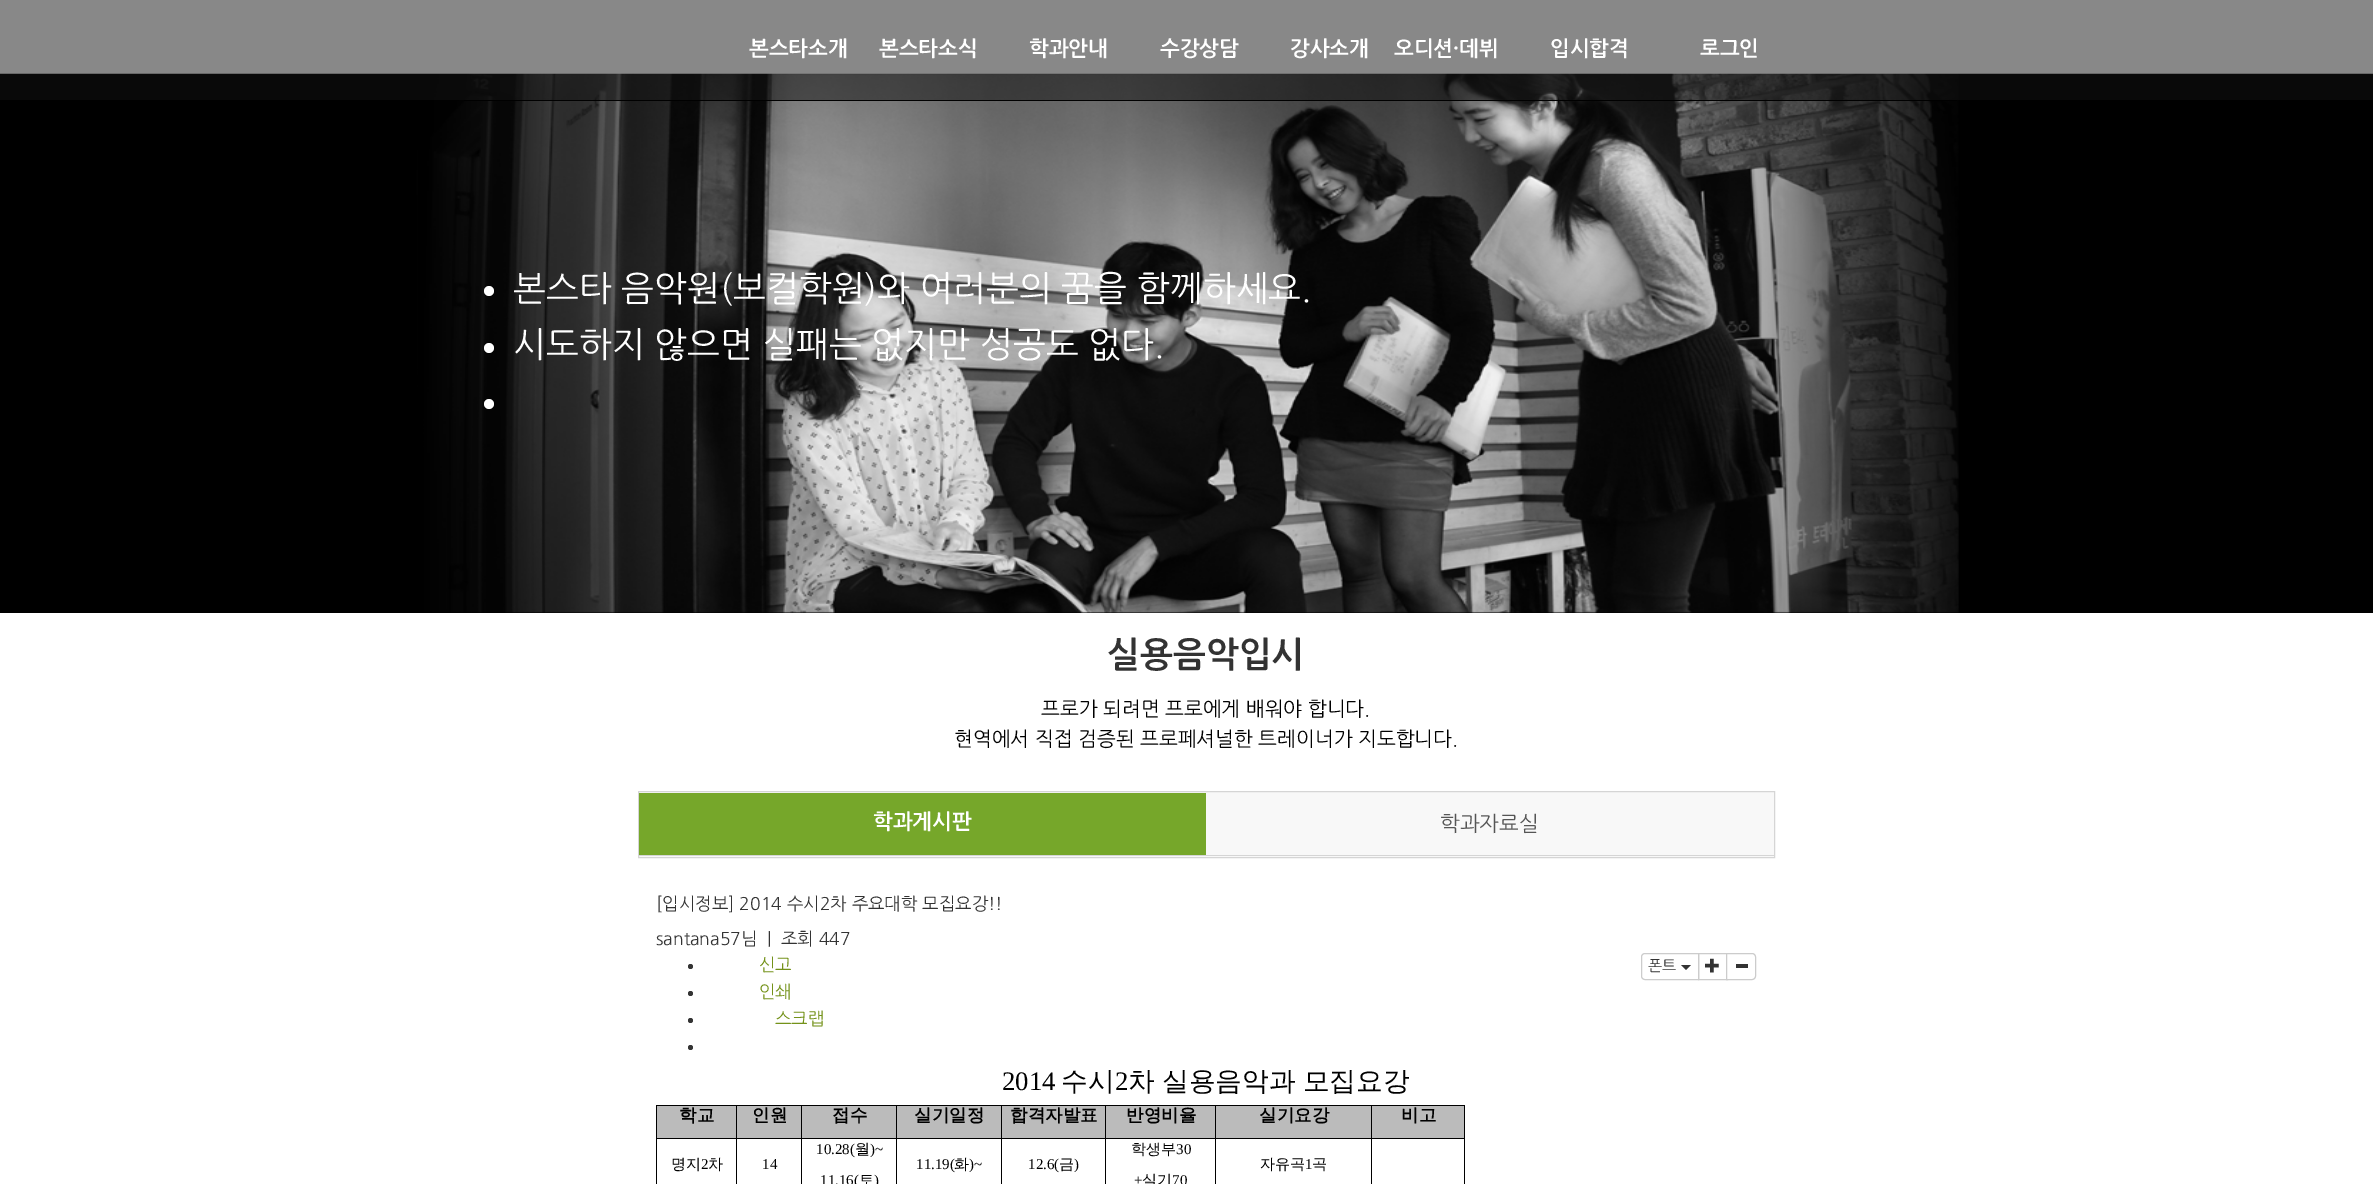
%!PS-Adobe-3.0
%%BoundingBox: 0 0 2373 1184
%%LanguageLevel: 3
%%Pages: 1
%%EndComments
%%BeginProlog
/m { moveto } bind def
/l { lineto } bind def
/c { curveto } bind def
/h { closepath } bind def
/f { fill } bind def
/S { stroke } bind def
/q { gsave } bind def
/Q { grestore } bind def
/fn { [ exch dup neg 0 0 3 -1 roll 0 0 ] selectfont } def
/tx { moveto show } def
/bx { rectfill } def
/al { dup .setfillconstantalpha .setstrokeconstantalpha } def
/ci { newpath 0 360 arc closepath } def
/im { 5 dict begin { /h /w /y /x /name } { exch def } forall
  gsave x y translate w h scale
  w h 8 [w 0 0 h 0 0] name (r) file false 3 colorimage grestore end } def
%%EndProlog
%%BeginSetup
<< /PageSize [2373 1184] /PageUsesTransparency true >> setpagedevice
%%EndSetup
%%Page: 1 1
0 .pushpdf14devicefilter
0 1184 translate 1 -1 scale
4 setmiterlimit
1 setgray
0 0 2373 1184 bx
0 setgray
0 612 2373 1 bx
(image0.raw) 0 73 2373 540 im
0.5 al
0.071 setgray
0 0 2373 100 bx
1 al
0 setgray
464 100 1493 1 bx
/NanumGothic-Bold 21 fn
1 setgray
(본스타소개) 749 56 tx
(본스타소식) 879 56 tx
(학과안내) 1029 56 tx
(수강상담) 1160 56 tx
(강사소개) 1290 56 tx
(오디션·데뷔) 1394 56 tx
(입시합격) 1550 56 tx
(로그인) 1700 56 tx
489 291 5 ci f
/NanumGothic-Regular 35 fn
(본스타 음악원\(보컬학원\)와 여러분의 꿈을 함께하세요.) 513 301 tx
489 348 5 ci f
(시도하지 않으면 실패는 없지만 성공도 없다.) 513 357 tx
489 404 5 ci f
/NanumGothic-Bold 35 fn
0.2 setgray
(실용음악입시) 1107 667 tx
/NanumGothic-Regular 20 fn
0 setgray
(프로가 되려면 프로에게 배워야 합니다.) 1041 716 tx
(현역에서 직접 검증된 프로페셔널한 트레이너가 지도합니다.) 954 746 tx
0.973 setgray
638.5 791.5 m 1774.5 791.5 l 1774.5 857.5 l 638.5 857.5 l h q f Q
0.835 setgray
S
0.463 0.655 0.165 setrgbcolor
639 793 567 62 bx
0.835 setgray
639 855 1135 1 bx
/NanumGothic-Bold 21 fn
1 setgray
(학과게시판) 873 829 tx
/NanumGothic-Regular 21 fn
0.333 setgray
(학과자료실) 1440 831 tx
/NanumGothic-Regular 17.5 fn
0.2 setgray
([입시정보] 2014 수시2차 주요대학 모집요강!!) 656 910 tx
(santana57님) 656 945 tx
(|) 767 945 tx
(조회 447) 781 945 tx
690.5 966.5 2.5 ci f
0.455 0.573 0.102 setrgbcolor
(신고) 759 971 tx
0.2 setgray
690.5 993.5 2.5 ci f
0.455 0.573 0.102 setrgbcolor
(인쇄) 759 998 tx
0.2 setgray
690.5 1020.5 2.5 ci f
0.455 0.573 0.102 setrgbcolor
(스크랩) 775 1025 tx
0.2 setgray
690.5 1047.5 2.5 ci f
0.8 setgray
1645 953.5 m 1698.5 953.5 l 1698.5 979.5 l 1645 979.5 l 1643 979.5 1641.5 978 1641.5 976 c 1641.5 957 l 1641.5 955 1643 953.5 1645 953.5 c h S
/NanumGothic-Regular 15 fn
0.2 setgray
(폰트) 1648 971 tx
1681 965 m 1691 965 l 1686 970 l h f
0.8 setgray
1698.5 953.5 29 26 rectstroke
(image1.raw) 1705 958 14 15 im
1 setgray
1726.5 953.5 m 1752 953.5 l 1754 953.5 1755.5 955 1755.5 957 c 1755.5 976 l 1755.5 978 1754 979.5 1752 979.5 c 1726.5 979.5 l h q f Q
0.8 setgray
S
0.2 setgray
1736 964 12 4 bx
/LiberationSerif-Regular 26.75 fn
0 setgray
(2014) 1002 1090 tx
/WenQuanYiZenHei-Medium 26.75 fn
(수시) 1061 1090 tx
/LiberationSerif-Regular 26.75 fn
(2) 1115 1090 tx
/WenQuanYiZenHei-Medium 26.75 fn
1128 1090 m -1 0 32 (차 실용음악과 모집요강) widthshow
656 1105 809 1 bx
1464 1105 1 79 bx
656 1105 1 79 bx
0.733 setgray
657 1106 144 32 bx
/WenQuanYiZenHei-Bold 17.5 fn
0 setgray
(학교) 679 1121 tx
1371 1138 94 1 bx
1371 1138 1 46 bx
1215 1138 158 1 bx
1215 1138 1 46 bx
1105 1138 111 1 bx
1105 1138 1 46 bx
1001 1138 105 1 bx
1001 1138 1 46 bx
896 1138 107 1 bx
896 1138 1 46 bx
801 1138 97 1 bx
801 1138 1 46 bx
736 1138 67 1 bx
736 1138 1 46 bx
656 1138 82 1 bx
736 1105 1 34 bx
(인원) 752 1121 tx
0.733 setgray
802 1106 199 32 bx
0 setgray
801 1105 1 34 bx
(접수) 832 1121 tx
896 1105 1 34 bx
(실기일정) 914 1121 tx
0.733 setgray
1002 1106 103 32 bx
0 setgray
1001 1105 1 34 bx
(합격자발표) 1010 1121 tx
0.733 setgray
1106 1106 109 32 bx
0 setgray
1105 1105 1 34 bx
(반영비율) 1126 1121 tx
0.733 setgray
1216 1106 155 32 bx
0 setgray
1215 1105 1 34 bx
(실기요강) 1259 1121 tx
0.733 setgray
1372 1106 92 32 bx
0 setgray
1371 1105 1 34 bx
(비고) 1401 1121 tx
/WenQuanYiZenHei-Medium 15 fn
(명지) 671 1169 tx
/LiberationSerif-Regular 15 fn
(2) 701 1169 tx
/WenQuanYiZenHei-Medium 15 fn
(차) 708 1169 tx
/LiberationSerif-Regular 15 fn
(14) 762 1169 tx
(10.28\() 816 1154 tx
/WenQuanYiZenHei-Medium 15 fn
(월) 855 1154 tx
/LiberationSerif-Regular 15 fn
(\)~) 870 1154 tx
(11.16\() 820 1185 tx
/WenQuanYiZenHei-Medium 15 fn
(토) 859 1185 tx
/LiberationSerif-Regular 15 fn
(\)) 874 1185 tx
(11.19\() 916 1169 tx
/WenQuanYiZenHei-Medium 15 fn
(화) 954 1169 tx
/LiberationSerif-Regular 15 fn
(\)~) 969 1169 tx
(12.6\() 1028 1169 tx
/WenQuanYiZenHei-Medium 15 fn
(금) 1059 1169 tx
/LiberationSerif-Regular 15 fn
(\)) 1074 1169 tx
/WenQuanYiZenHei-Medium 15 fn
(학생부) 1131 1154 tx
/LiberationSerif-Regular 15 fn
(30) 1176 1154 tx
(+) 1134 1185 tx
/WenQuanYiZenHei-Medium 15 fn
(실기) 1142 1185 tx
/LiberationSerif-Regular 15 fn
(70) 1172 1185 tx
/WenQuanYiZenHei-Medium 15 fn
(자유곡) 1260 1169 tx
/LiberationSerif-Regular 15 fn
(1) 1305 1169 tx
/WenQuanYiZenHei-Medium 15 fn
(곡) 1312 1169 tx
.poppdf14devicefilter showpage
%%EOF
